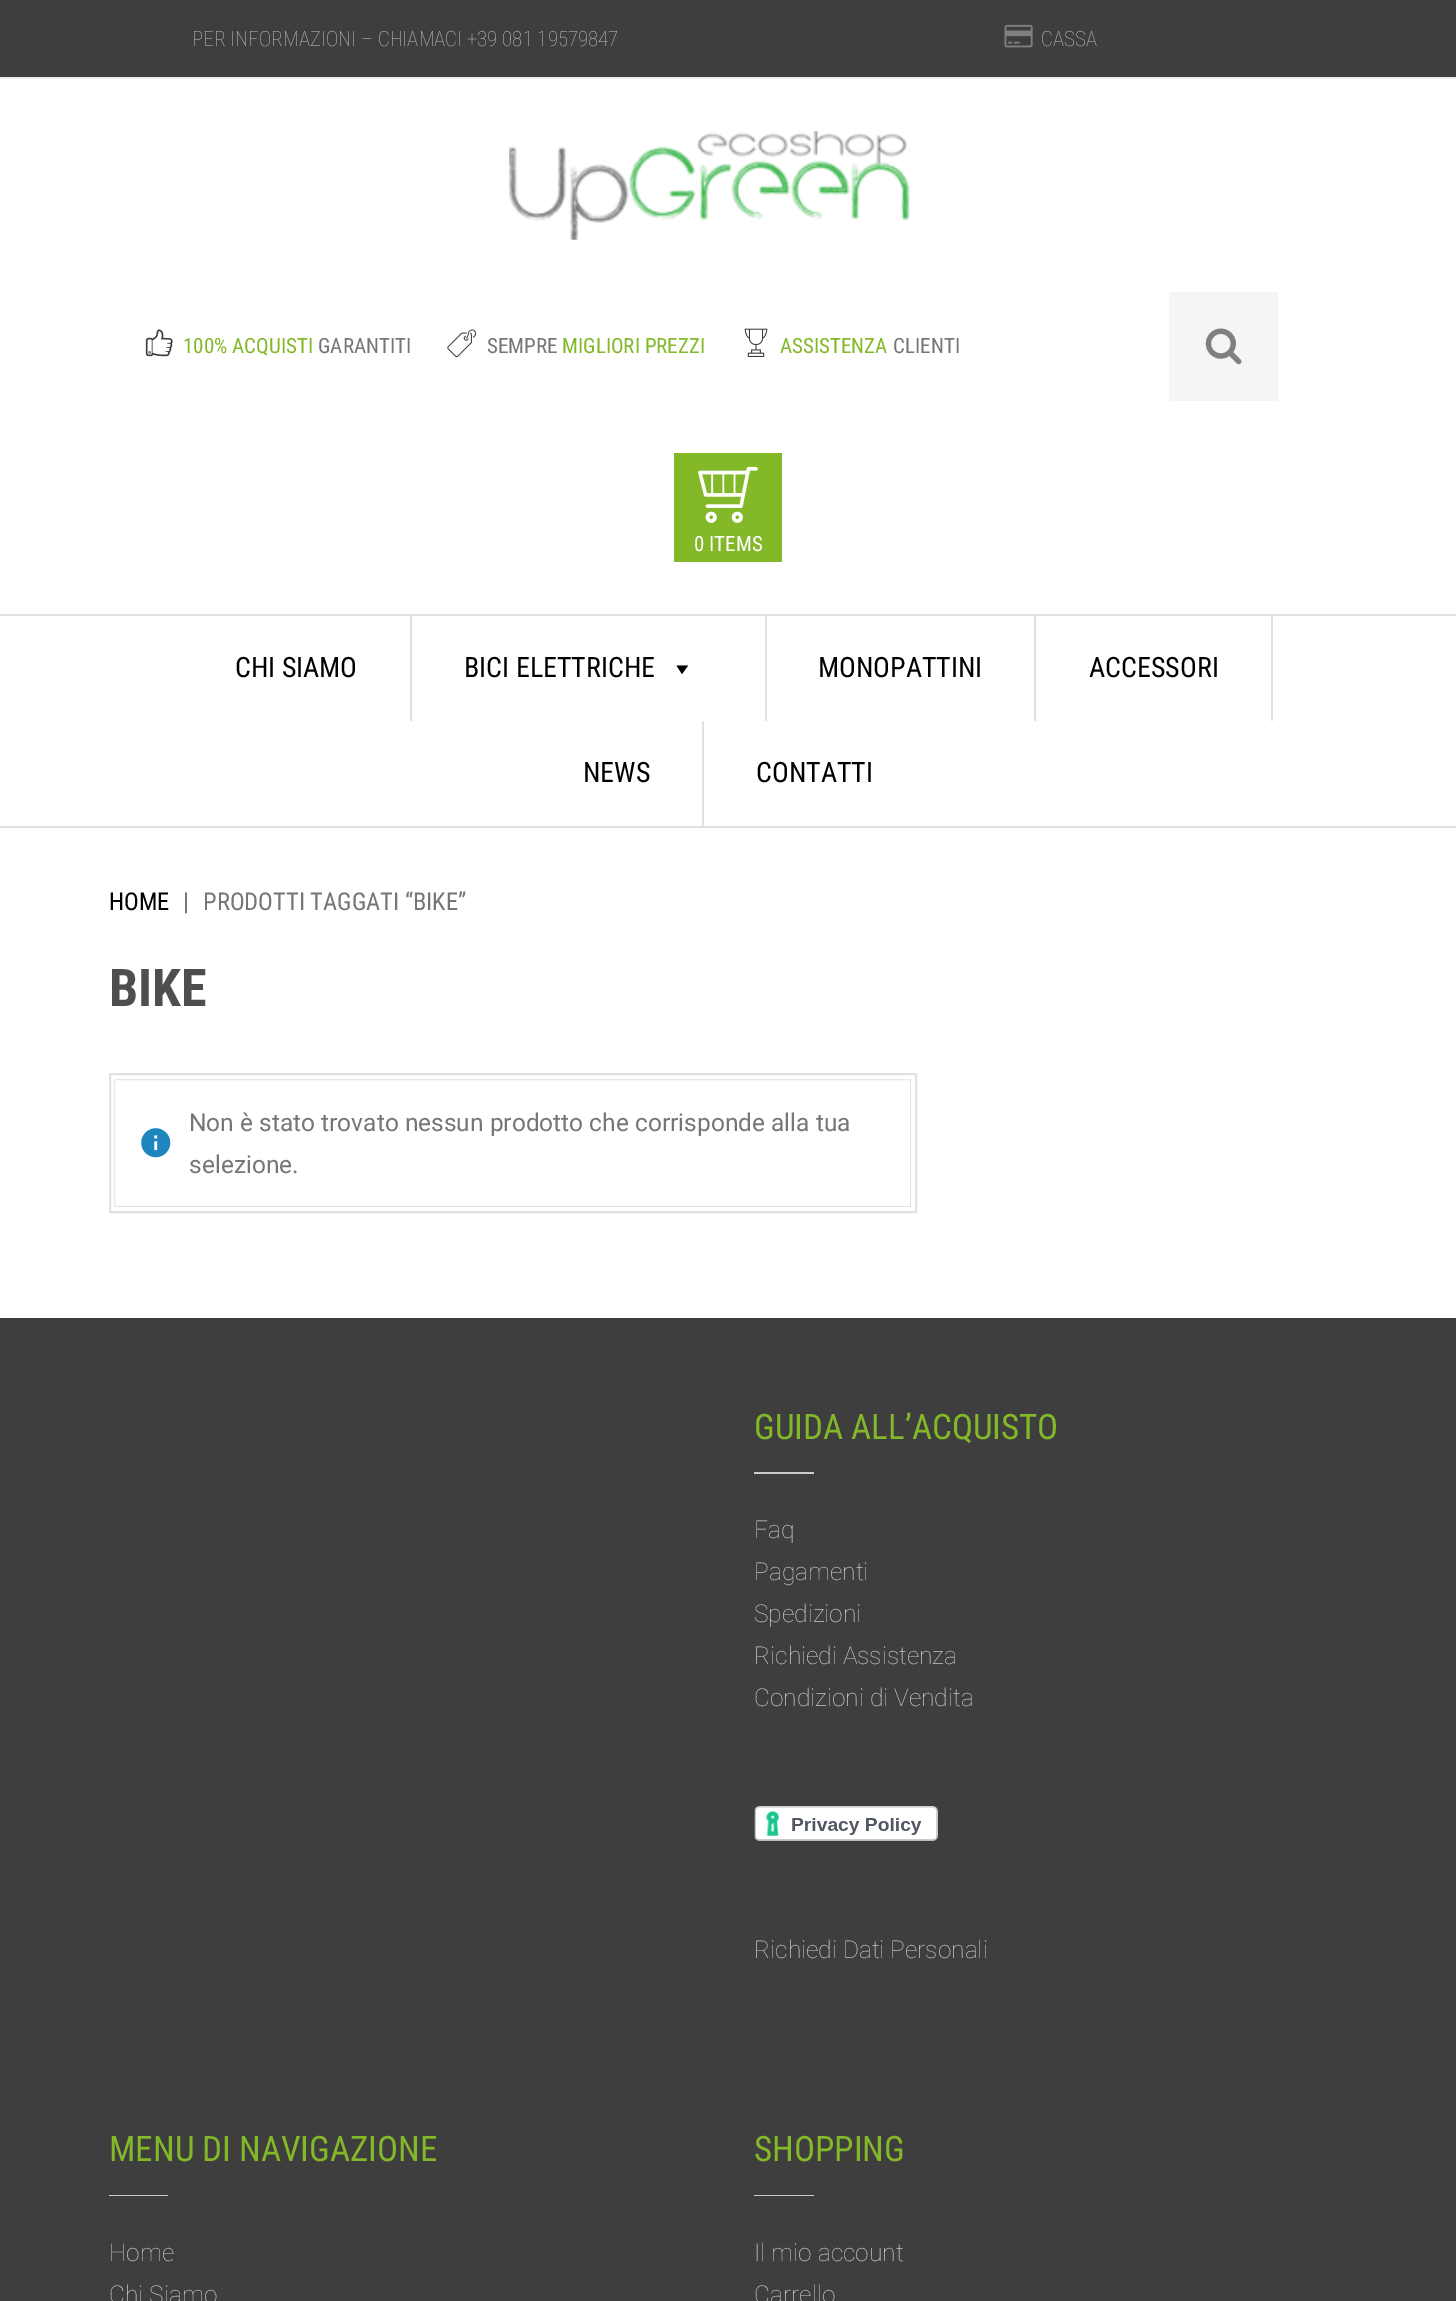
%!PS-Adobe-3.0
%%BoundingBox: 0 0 1456 2301
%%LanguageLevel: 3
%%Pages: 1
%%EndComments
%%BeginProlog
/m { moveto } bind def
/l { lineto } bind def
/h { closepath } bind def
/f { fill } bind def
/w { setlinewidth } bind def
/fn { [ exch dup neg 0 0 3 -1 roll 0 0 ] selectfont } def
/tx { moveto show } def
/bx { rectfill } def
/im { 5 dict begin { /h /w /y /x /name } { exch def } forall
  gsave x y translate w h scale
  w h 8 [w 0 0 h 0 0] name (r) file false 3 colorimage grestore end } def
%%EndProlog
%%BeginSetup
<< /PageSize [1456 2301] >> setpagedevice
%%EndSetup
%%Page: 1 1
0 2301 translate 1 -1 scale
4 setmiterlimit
1 setgray
0 0 1456 2301 bx
0.243 setgray
0 0 1456 77 bx
0.922 setgray
0 77 1456 2 bx
/RobotoCondensed-Thin 21 fn
0.761 setgray
(PER INFORMAZIONI – CHIAMACI +39 081 19579847) 192 46 tx
(image0.raw) 1004 24 29 24 im
(CASSA) 1041 46 tx
(image1.raw) 509 131 402 109 im
(image2.raw) 145 329 28 28 im
/RobotoCondensed-Regular 21 fn
0.514 0.722 0.157 setrgbcolor
(100% ACQUISTI) 183 353 tx
0.463 setgray
(GARANTITI) 318 353 tx
(image3.raw) 447 329 29 29 im
(SEMPRE) 487 353 tx
0.514 0.722 0.157 setrgbcolor
(MIGLIORI PREZZI) 562 353 tx
(image4.raw) 744 328 24 29 im
(ASSISTENZA) 780 353 tx
0.463 setgray
(CLIENTI) 893 353 tx
0.961 setgray
1169 292 109 109 bx
(image5.raw) 1205 328 37 37 im
0.514 0.722 0.157 setrgbcolor
674 453 108 109 bx
(image6.raw) 698 466 60 57 im
1 setgray
(0 ITEMS) 694 551 tx
0.882 setgray
0 614 1456 2 bx
0 826 1456 2 bx
410 616 2 105 bx
/RobotoCondensed-Regular 28 fn
0 setgray
(CHI SIAMO) 235 677 tx
0.882 setgray
765 616 2 105 bx
0 setgray
(BICI ELETTRICHE) 464 677 tx
688 665.5 m 682 674 l 676.5 665.5 l h f
0.882 setgray
1034 616 2 105 bx
0 setgray
(MONOPATTINI) 818 677 tx
0.882 setgray
1271 616 2 105 bx
0 setgray
(ACCESSORI) 1089 677 tx
0.882 setgray
702 721 2 105 bx
0 setgray
(NEWS) 583 782 tx
(CONTATTI) 756 782 tx
/RobotoCondensed-Regular 24.5 fn
(HOME) 109 910 tx
0.463 setgray
(|) 183 910 tx
(PRODOTTI TAGGATI “BIKE”) 203 910 tx
/RobotoCondensed-Bold 52 fn
0.306 setgray
(BIKE) 109 1006 tx
0.882 setgray
5 w
112.5 1077.5 800 131 rectstroke
1 setgray
4 w
112 1077 801 132 rectstroke
0.882 setgray
2 w
110 1074 806 138 rectstroke
/Roboto-Regular 24.5 fn
0.463 setgray
(Non è stato trovato nessun prodotto che corrisponde alla tua) 189 1131 tx
(image7.raw) 141 1128 30 30 im
(selezione.) 189 1173 tx
0.243 setgray
0 1318 1456 983 bx
/RobotoCondensed-Regular 35 fn
0.514 0.722 0.157 setrgbcolor
(GUIDA ALL’ACQUISTO) 754 1439 tx
0.8 setgray
754 1472 60 2 bx
/Roboto-Thin 24.5 fn
(Faq) 754 1538 tx
(Pagamenti) 754 1580 tx
(Spedizioni) 754 1622 tx
(Richiedi Assistenza) 754 1664 tx
(Condizioni di Vendita) 754 1706 tx
(image8.raw) 754 1806 184 36 im
(Richiedi Dati Personali) 754 1958 tx
/RobotoCondensed-Regular 35 fn
0.514 0.722 0.157 setrgbcolor
(MENU DI NAVIGAZIONE) 109 2161 tx
0.8 setgray
109 2195 59 1 bx
/Roboto-Thin 24.5 fn
(Home) 109 2261 tx
(Chi Siamo) 109 2303 tx
/RobotoCondensed-Regular 35 fn
0.514 0.722 0.157 setrgbcolor
(SHOPPING) 754 2161 tx
0.8 setgray
754 2195 60 1 bx
/Roboto-Thin 24.5 fn
(Il mio account) 754 2261 tx
(Carrello) 754 2303 tx
showpage
%%EOF
